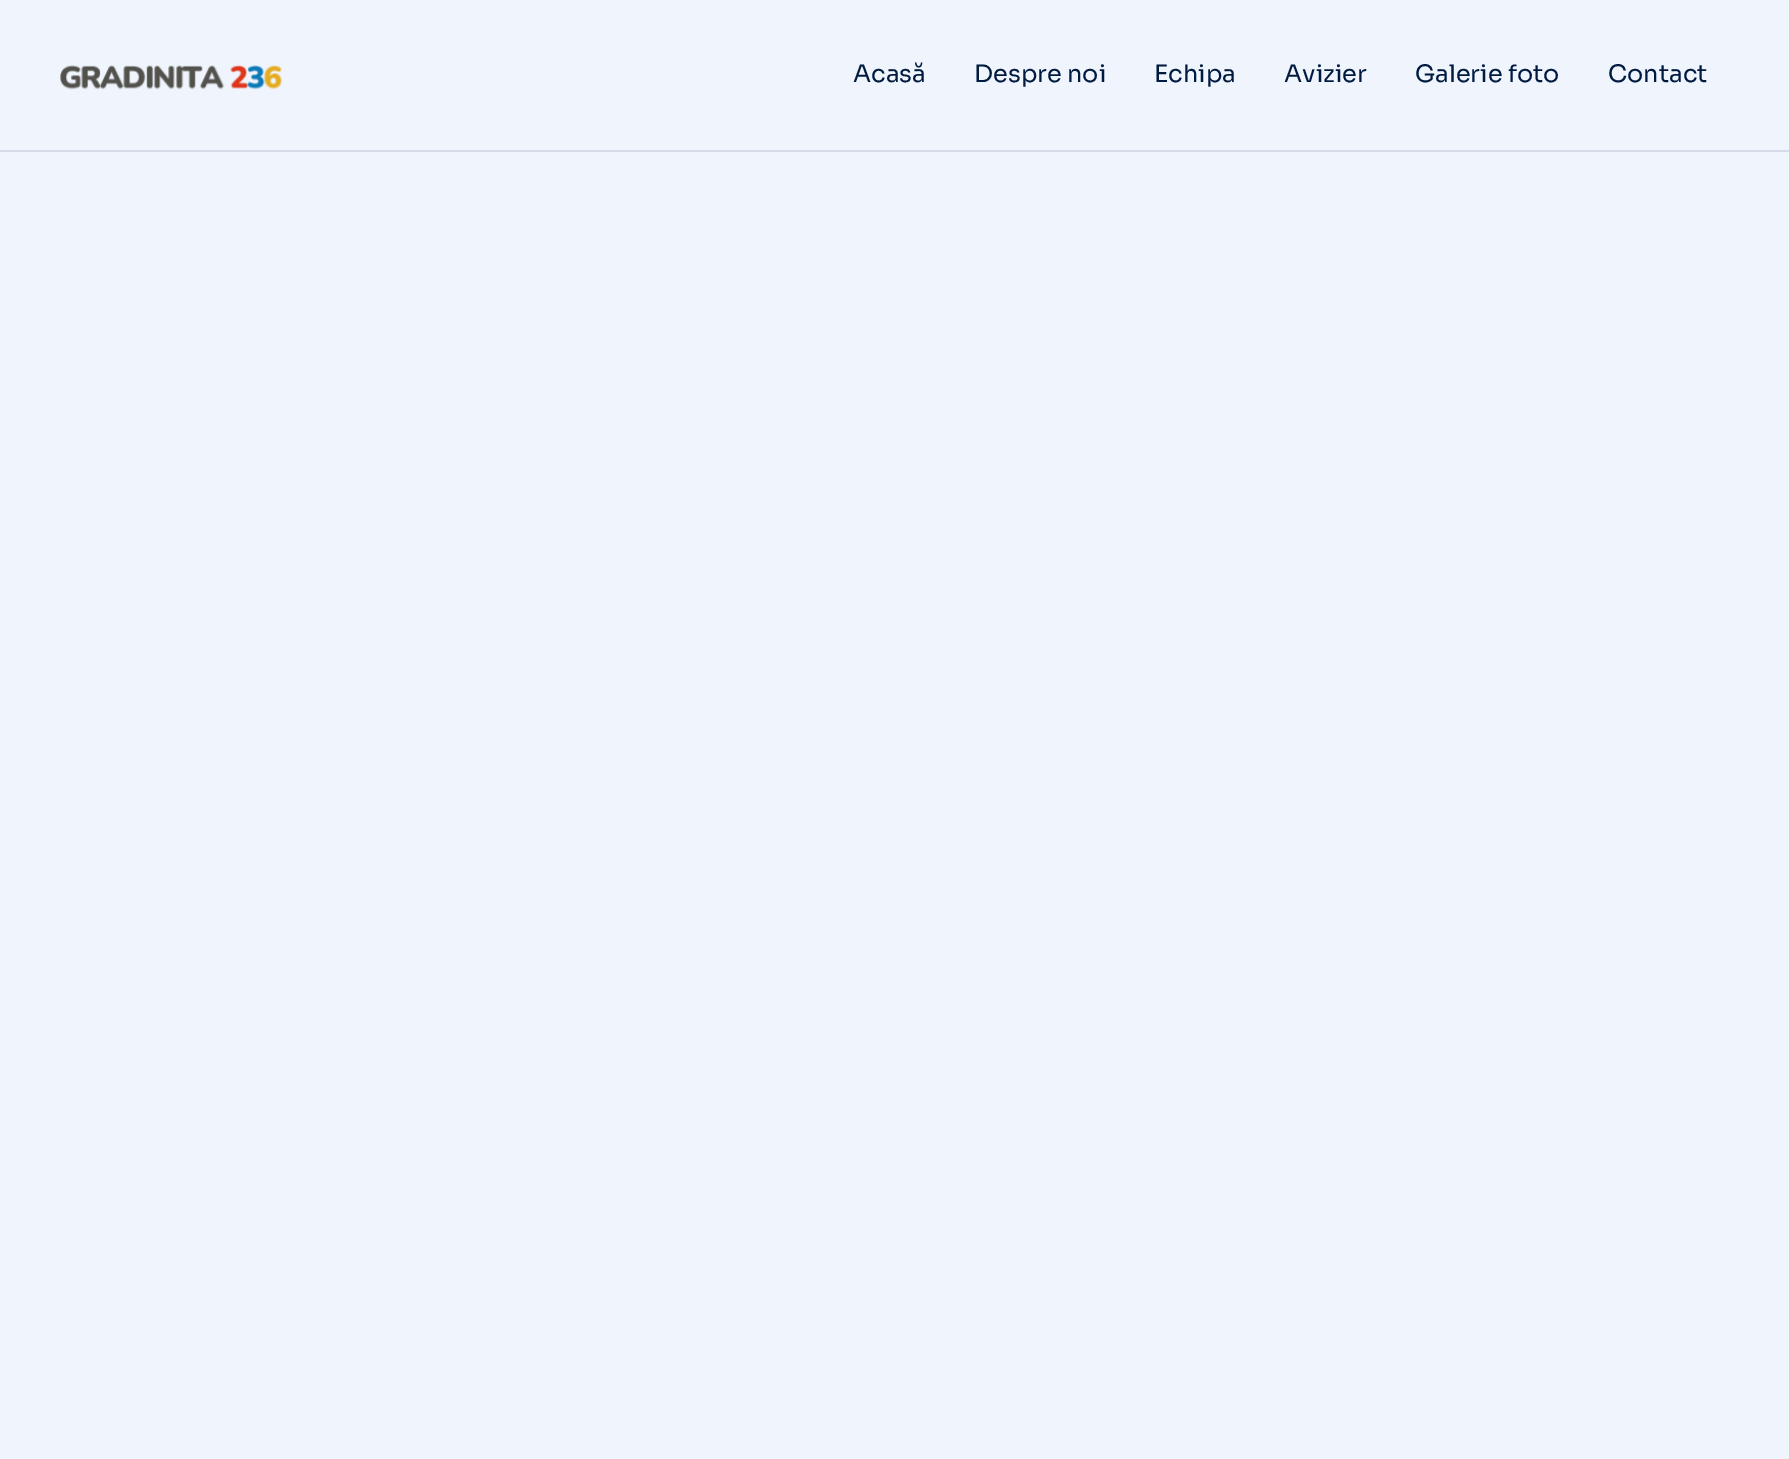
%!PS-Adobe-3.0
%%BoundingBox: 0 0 1789 1459
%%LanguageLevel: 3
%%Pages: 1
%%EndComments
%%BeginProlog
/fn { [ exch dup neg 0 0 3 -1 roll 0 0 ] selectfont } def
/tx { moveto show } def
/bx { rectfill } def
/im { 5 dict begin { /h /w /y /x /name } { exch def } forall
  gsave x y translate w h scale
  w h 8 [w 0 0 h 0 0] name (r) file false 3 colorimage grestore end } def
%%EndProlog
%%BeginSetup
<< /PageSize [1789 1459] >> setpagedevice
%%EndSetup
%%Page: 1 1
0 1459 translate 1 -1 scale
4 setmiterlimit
0.937 0.957 0.992 setrgbcolor
0 0 1789 1459 bx
0.835 0.863 0.91 setrgbcolor
0 150 1789 2 bx
(image0.raw) 60 65 223 25 im
/Sora-Regular 24 fn
0 0.102 0.251 setrgbcolor
(Acasă) 853 82 tx
(Despre noi) 974 82 tx
(Echipa) 1154 82 tx
(Avizier) 1284 82 tx
(Galerie foto) 1415 82 tx
(Contact) 1608 82 tx
showpage
%%EOF
